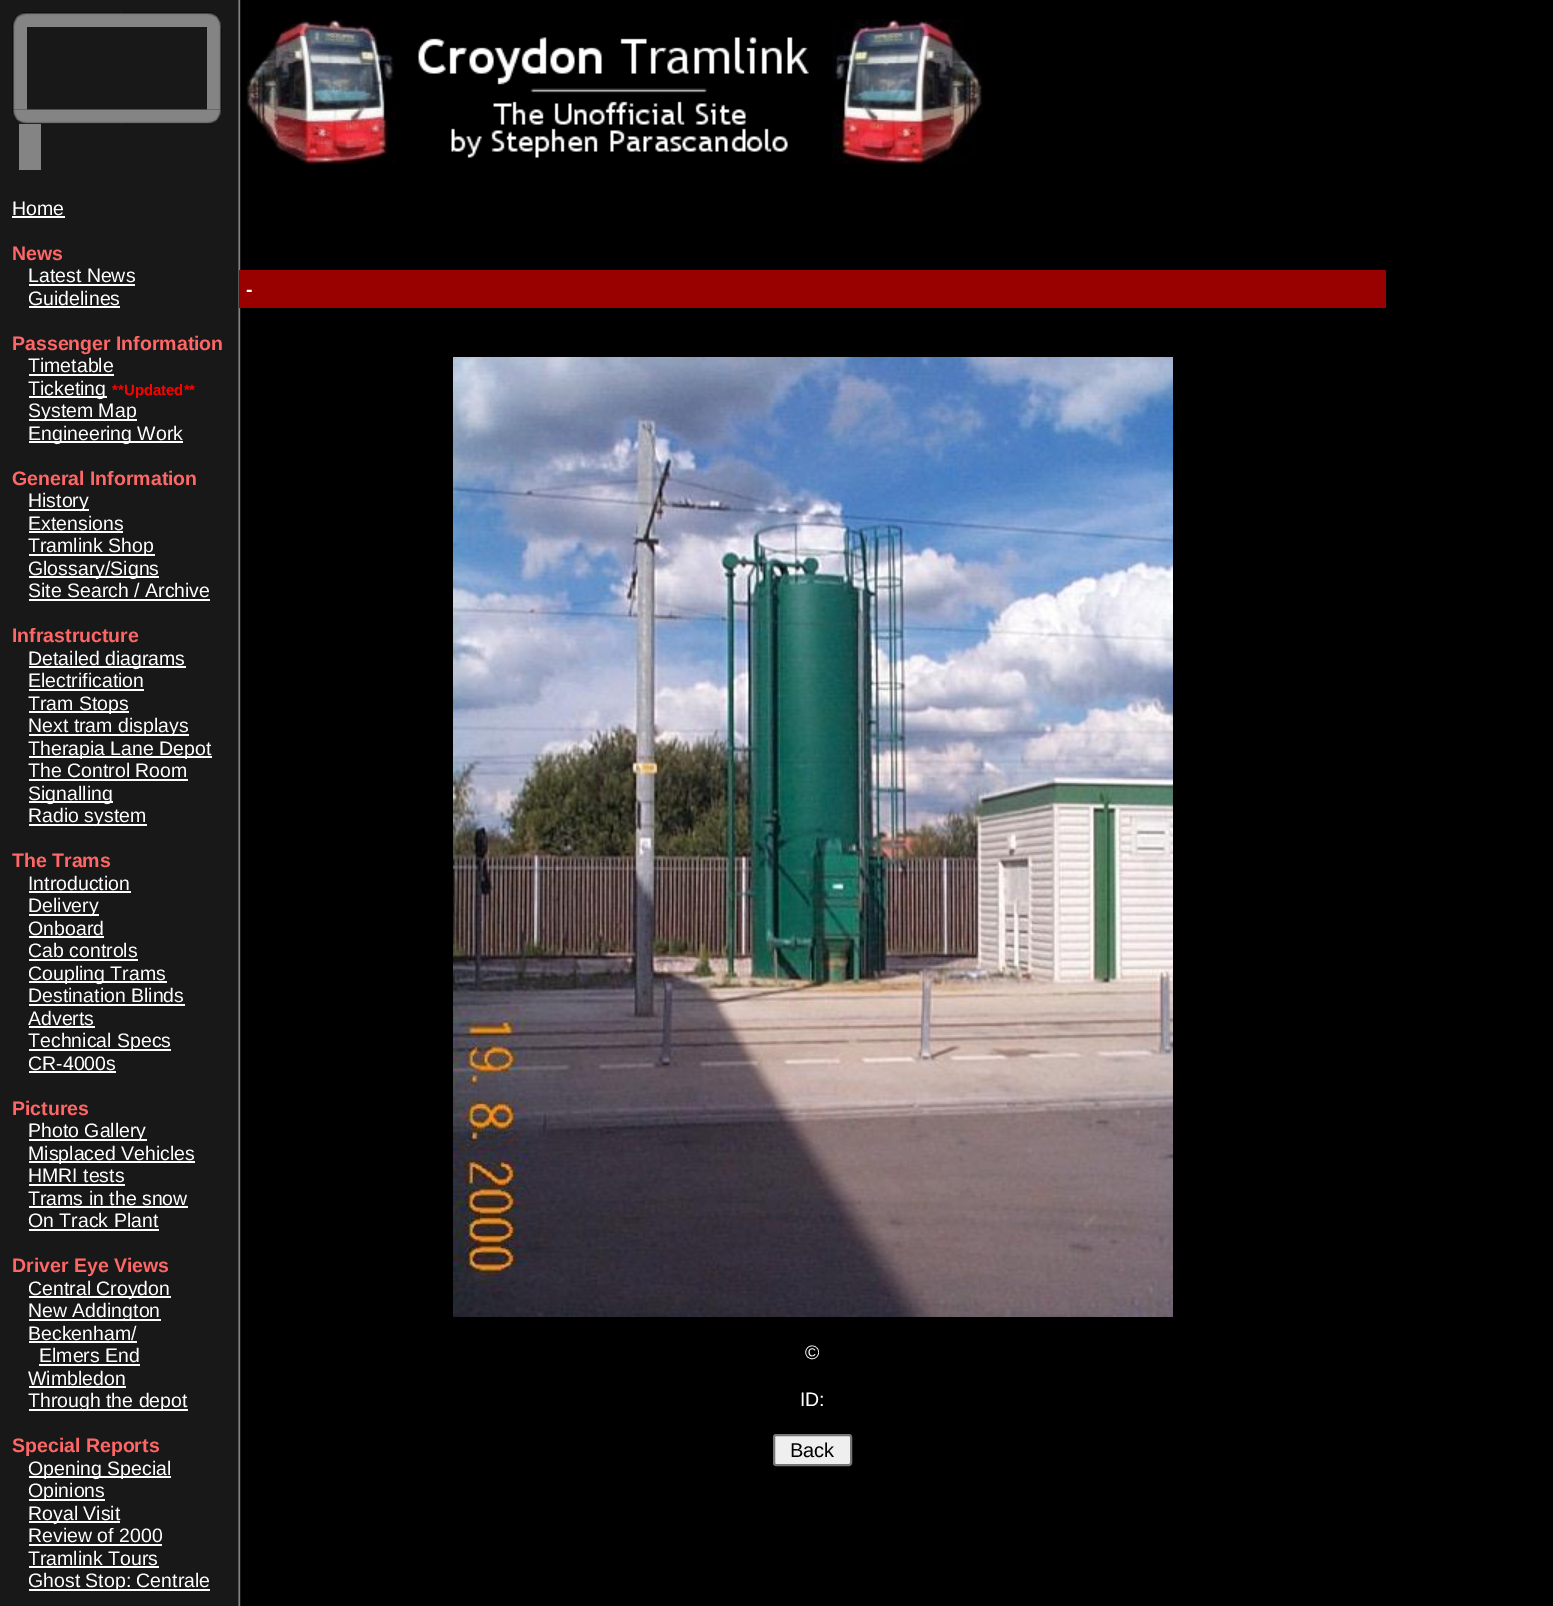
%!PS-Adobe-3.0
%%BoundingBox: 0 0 1553 1606
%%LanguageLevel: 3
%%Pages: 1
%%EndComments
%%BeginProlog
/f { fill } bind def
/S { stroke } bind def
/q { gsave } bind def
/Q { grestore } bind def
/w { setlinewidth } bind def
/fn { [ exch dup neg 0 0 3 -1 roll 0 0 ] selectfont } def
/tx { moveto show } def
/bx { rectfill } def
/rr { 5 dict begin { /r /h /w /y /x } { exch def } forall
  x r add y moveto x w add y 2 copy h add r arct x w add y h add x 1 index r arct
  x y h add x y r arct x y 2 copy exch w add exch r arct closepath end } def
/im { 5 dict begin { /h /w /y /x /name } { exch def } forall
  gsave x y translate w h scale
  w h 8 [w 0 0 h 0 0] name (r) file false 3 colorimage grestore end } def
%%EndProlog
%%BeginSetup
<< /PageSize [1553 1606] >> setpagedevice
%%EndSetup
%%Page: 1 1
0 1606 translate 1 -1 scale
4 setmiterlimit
0 setgray
0 0 1553 1606 bx
(image0.raw) 0 0 241 1606 im
(image1.raw) 12 12 209 15 im
(image2.raw) 12 27 15 83 im
(image3.raw) 207 27 15 83 im
(image4.raw) 12 109 209 16 im
0.518 setgray
19 124 22 46 bx
/LiberationSans-Regular 19.5 fn
1 setgray
(Home) 12 215 tx
12 216 53 2 bx
/LiberationSans-Bold 19.5 fn
1 0.4 0.4 setrgbcolor
(News) 12 260 tx
/LiberationSans-Regular 19.5 fn
1 setgray
(Latest News) 28 282 tx
29 284 106 2 bx
(Guidelines) 28 305 tx
29 306 91 2 bx
/LiberationSans-Bold 19.5 fn
1 0.4 0.4 setrgbcolor
(Passenger Information) 12 350 tx
/LiberationSans-Regular 19.5 fn
1 setgray
(Timetable) 28 372 tx
29 374 85 2 bx
29 396 78 2 bx
(Ticketing) 28 395 tx
/LiberationSans-Bold 15 fn
1 0 0 setrgbcolor
(**Updated**) 112 395 tx
1 setgray
29 419 108 2 bx
/LiberationSans-Regular 19.5 fn
(System Map) 28 417 tx
29 441 154 2 bx
(Engineering Work) 28 440 tx
/LiberationSans-Bold 19.5 fn
1 0.4 0.4 setrgbcolor
(General Information) 12 485 tx
1 setgray
29 509 60 2 bx
/LiberationSans-Regular 19.5 fn
(History) 28 507 tx
(Extensions) 28 530 tx
29 531 94 2 bx
29 554 126 2 bx
(Tramlink Shop) 28 552 tx
29 576 130 2 bx
(Glossary/Signs) 28 575 tx
(Site Search / Archive) 28 597 tx
29 599 181 2 bx
/LiberationSans-Bold 19.5 fn
1 0.4 0.4 setrgbcolor
(Infrastructure) 12 642 tx
1 setgray
29 666 157 2 bx
/LiberationSans-Regular 19.5 fn
(Detailed diagrams) 28 665 tx
(Electrification) 28 687 tx
29 689 115 2 bx
29 711 100 2 bx
(Tram Stops) 28 710 tx
29 734 160 2 bx
(Next tram displays) 28 732 tx
29 756 183 2 bx
(Therapia Lane Depot) 28 755 tx
(The Control Room) 28 777 tx
29 779 159 2 bx
29 801 84 2 bx
(Signalling) 28 800 tx
29 824 118 2 bx
(Radio system) 28 822 tx
/LiberationSans-Bold 19.5 fn
1 0.4 0.4 setrgbcolor
(The Trams) 12 867 tx
/LiberationSans-Regular 19.5 fn
1 setgray
(Introduction) 28 890 tx
29 891 102 2 bx
29 914 70 2 bx
(Delivery) 28 912 tx
(Onboard) 28 935 tx
29 936 75 2 bx
(Cab controls) 28 957 tx
29 959 109 2 bx
29 981 138 2 bx
(Coupling Trams) 28 980 tx
(Destination Blinds) 28 1002 tx
29 1004 156 2 bx
(Adverts) 28 1025 tx
29 1026 66 2 bx
29 1049 142 2 bx
(Technical Specs) 28 1047 tx
(CR-4000s) 28 1070 tx
29 1071 87 2 bx
/LiberationSans-Bold 19.5 fn
1 0.4 0.4 setrgbcolor
(Pictures) 12 1115 tx
1 setgray
29 1139 118 2 bx
/LiberationSans-Regular 19.5 fn
(Photo Gallery) 28 1137 tx
29 1161 166 2 bx
(Misplaced Vehicles) 28 1160 tx
(HMRI tests) 28 1182 tx
29 1184 96 2 bx
(Trams in the snow) 28 1205 tx
29 1206 159 2 bx
(On Track Plant) 28 1227 tx
29 1229 130 2 bx
/LiberationSans-Bold 19.5 fn
1 0.4 0.4 setrgbcolor
(Driver Eye Views) 12 1272 tx
1 setgray
29 1296 142 2 bx
/LiberationSans-Regular 19.5 fn
(Central Croydon) 28 1295 tx
29 1319 132 2 bx
(New Addington) 28 1317 tx
(Beckenham/) 28 1340 tx
29 1341 108 2 bx
(Elmers End) 39 1362 tx
39 1364 101 2 bx
(Wimbledon) 28 1385 tx
29 1386 97 2 bx
29 1409 159 2 bx
(Through the depot) 28 1407 tx
/LiberationSans-Bold 19.5 fn
1 0.4 0.4 setrgbcolor
(Special Reports) 12 1452 tx
1 setgray
29 1476 142 2 bx
/LiberationSans-Regular 19.5 fn
(Opening Special) 28 1475 tx
29 1499 76 2 bx
(Opinions) 28 1497 tx
29 1521 91 2 bx
(Royal Visit) 28 1520 tx
(Review of 2000) 28 1542 tx
29 1544 133 2 bx
(Tramlink Tours) 28 1565 tx
29 1566 130 2 bx
29 1589 181 2 bx
(Ghost Stop: Centrale) 28 1587 tx
(image5.raw) 246 19 150 145 im
(image6.raw) 418 37 391 121 im
(image7.raw) 832 19 151 145 im
0.6 0 0 setrgbcolor
239 270 1147 38 bx
/LiberationSans-Bold 19.5 fn
1 setgray
(-) 246 296 tx
(image8.raw) 453 357 720 960 im
/LiberationSans-Regular 19.5 fn
(©) 805 1359 tx
(ID:) 800 1406 tx
0.937 setgray
774 1435 77 30 2 rr q f Q
0.463 setgray
2 w
S
/LiberationSans-Regular 20 fn
0 setgray
(Back) 790 1457 tx
showpage
%%EOF
